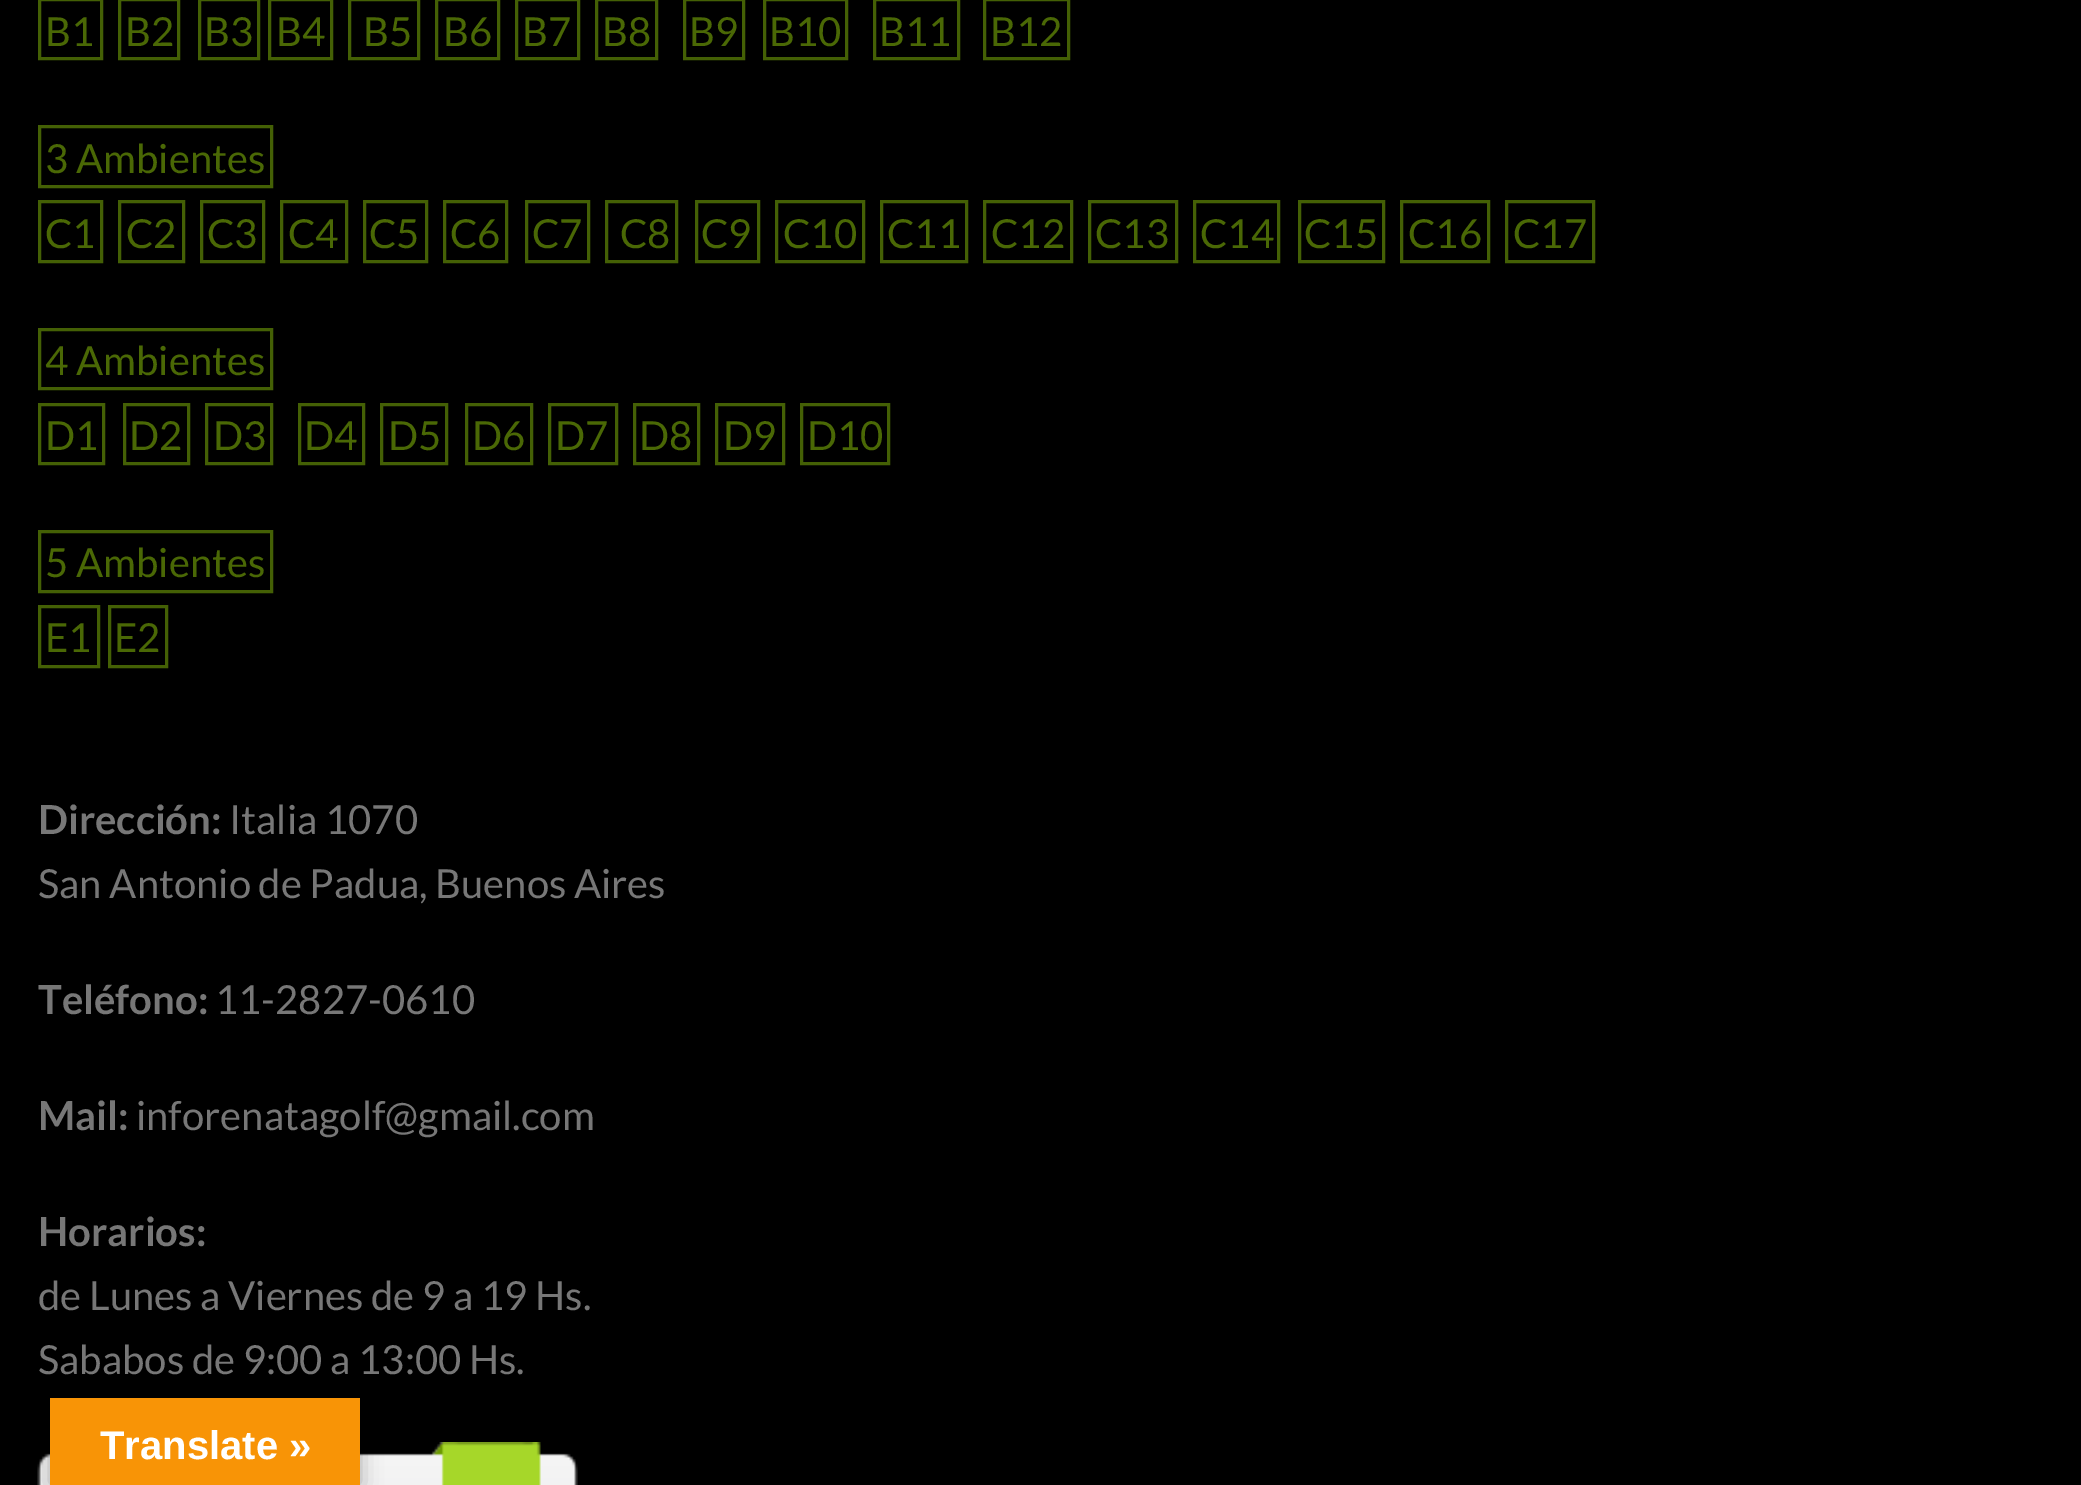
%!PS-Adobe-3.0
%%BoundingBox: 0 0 2081 1485
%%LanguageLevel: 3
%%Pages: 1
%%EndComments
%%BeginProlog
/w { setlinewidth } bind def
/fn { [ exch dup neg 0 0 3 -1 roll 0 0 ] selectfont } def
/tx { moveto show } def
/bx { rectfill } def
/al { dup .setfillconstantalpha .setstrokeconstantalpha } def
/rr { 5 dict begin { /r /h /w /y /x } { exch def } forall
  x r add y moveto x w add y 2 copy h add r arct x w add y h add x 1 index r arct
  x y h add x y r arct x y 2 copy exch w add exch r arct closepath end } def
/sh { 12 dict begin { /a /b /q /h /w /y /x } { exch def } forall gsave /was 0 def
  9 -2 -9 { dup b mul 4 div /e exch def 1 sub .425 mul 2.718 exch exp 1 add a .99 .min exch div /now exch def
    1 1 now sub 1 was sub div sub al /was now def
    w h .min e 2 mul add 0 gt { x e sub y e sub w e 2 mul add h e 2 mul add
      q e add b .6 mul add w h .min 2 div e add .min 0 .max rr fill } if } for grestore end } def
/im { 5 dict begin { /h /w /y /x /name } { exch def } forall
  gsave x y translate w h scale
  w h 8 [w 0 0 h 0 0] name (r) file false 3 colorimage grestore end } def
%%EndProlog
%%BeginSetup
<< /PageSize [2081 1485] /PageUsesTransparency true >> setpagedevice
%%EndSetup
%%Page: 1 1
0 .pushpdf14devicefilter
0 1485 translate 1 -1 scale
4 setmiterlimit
0 setgray
0 0 2081 1485 bx
0.267 0.376 0.02 setrgbcolor
3 w
39.5 -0.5 62 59 rectstroke
/Lato-Regular 40 fn
0.29 0.408 0.02 setrgbcolor
(B1) 45 46 tx
0.267 0.376 0.02 setrgbcolor
119.5 -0.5 59 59 rectstroke
0.29 0.408 0.02 setrgbcolor
(B2) 125 46 tx
0.267 0.376 0.02 setrgbcolor
199.5 -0.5 59 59 rectstroke
0.29 0.408 0.02 setrgbcolor
(B3) 204 46 tx
0.267 0.376 0.02 setrgbcolor
269.5 -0.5 62 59 rectstroke
0.29 0.408 0.02 setrgbcolor
(B4) 276 46 tx
0.267 0.376 0.02 setrgbcolor
349.5 -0.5 69 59 rectstroke
0.29 0.408 0.02 setrgbcolor
(B5) 363 46 tx
0.267 0.376 0.02 setrgbcolor
436.5 -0.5 62 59 rectstroke
0.29 0.408 0.02 setrgbcolor
(B6) 443 46 tx
0.267 0.376 0.02 setrgbcolor
516.5 -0.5 62 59 rectstroke
0.29 0.408 0.02 setrgbcolor
(B7) 522 46 tx
0.267 0.376 0.02 setrgbcolor
596.5 -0.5 60 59 rectstroke
0.29 0.408 0.02 setrgbcolor
(B8) 602 46 tx
0.267 0.376 0.02 setrgbcolor
684.5 -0.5 59 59 rectstroke
0.29 0.408 0.02 setrgbcolor
(B9) 689 46 tx
0.267 0.376 0.02 setrgbcolor
764.5 -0.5 82 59 rectstroke
0.29 0.408 0.02 setrgbcolor
(B10) 769 46 tx
0.267 0.376 0.02 setrgbcolor
874.5 -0.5 84 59 rectstroke
0.29 0.408 0.02 setrgbcolor
(B11) 879 46 tx
0.267 0.376 0.02 setrgbcolor
984.5 -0.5 84 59 rectstroke
0.29 0.408 0.02 setrgbcolor
(B12) 990 46 tx
0.267 0.376 0.02 setrgbcolor
39.5 126.5 232 60 rectstroke
0.29 0.408 0.02 setrgbcolor
(3 Ambientes) 45 173 tx
0.267 0.376 0.02 setrgbcolor
39.5 201.5 62 60 rectstroke
0.29 0.408 0.02 setrgbcolor
(C1) 45 248 tx
0.267 0.376 0.02 setrgbcolor
119.5 201.5 64 60 rectstroke
0.29 0.408 0.02 setrgbcolor
(C2) 126 248 tx
0.267 0.376 0.02 setrgbcolor
201.5 201.5 62 60 rectstroke
0.29 0.408 0.02 setrgbcolor
(C3) 207 248 tx
0.267 0.376 0.02 setrgbcolor
281.5 201.5 65 60 rectstroke
0.29 0.408 0.02 setrgbcolor
(C4) 288 248 tx
0.267 0.376 0.02 setrgbcolor
364.5 201.5 62 60 rectstroke
0.29 0.408 0.02 setrgbcolor
(C5) 369 248 tx
0.267 0.376 0.02 setrgbcolor
444.5 201.5 62 60 rectstroke
0.29 0.408 0.02 setrgbcolor
(C6) 450 248 tx
0.267 0.376 0.02 setrgbcolor
526.5 201.5 62 60 rectstroke
0.29 0.408 0.02 setrgbcolor
(C7) 532 248 tx
0.267 0.376 0.02 setrgbcolor
606.5 201.5 70 60 rectstroke
0.29 0.408 0.02 setrgbcolor
(C8) 620 248 tx
0.267 0.376 0.02 setrgbcolor
696.5 201.5 62 60 rectstroke
0.29 0.408 0.02 setrgbcolor
(C9) 701 248 tx
0.267 0.376 0.02 setrgbcolor
776.5 201.5 87 60 rectstroke
0.29 0.408 0.02 setrgbcolor
(C10) 783 248 tx
0.267 0.376 0.02 setrgbcolor
881.5 201.5 85 60 rectstroke
0.29 0.408 0.02 setrgbcolor
(C11) 887 248 tx
0.267 0.376 0.02 setrgbcolor
984.5 201.5 87 60 rectstroke
0.29 0.408 0.02 setrgbcolor
(C12) 991 248 tx
0.267 0.376 0.02 setrgbcolor
1089.5 201.5 87 60 rectstroke
0.29 0.408 0.02 setrgbcolor
(C13) 1095 248 tx
0.267 0.376 0.02 setrgbcolor
1194.5 201.5 84 60 rectstroke
0.29 0.408 0.02 setrgbcolor
(C14) 1200 248 tx
0.267 0.376 0.02 setrgbcolor
1299.5 201.5 84 60 rectstroke
0.29 0.408 0.02 setrgbcolor
(C15) 1304 248 tx
0.267 0.376 0.02 setrgbcolor
1401.5 201.5 87 60 rectstroke
0.29 0.408 0.02 setrgbcolor
(C16) 1408 248 tx
0.267 0.376 0.02 setrgbcolor
1506.5 201.5 87 60 rectstroke
0.29 0.408 0.02 setrgbcolor
(C17) 1513 248 tx
0.267 0.376 0.02 setrgbcolor
39.5 329.5 232 59 rectstroke
0.29 0.408 0.02 setrgbcolor
(4 Ambientes) 45 375 tx
0.267 0.376 0.02 setrgbcolor
39.5 404.5 64 59 rectstroke
0.29 0.408 0.02 setrgbcolor
(D1) 45 450 tx
0.267 0.376 0.02 setrgbcolor
124.5 404.5 64 59 rectstroke
0.29 0.408 0.02 setrgbcolor
(D2) 129 450 tx
0.267 0.376 0.02 setrgbcolor
206.5 404.5 65 59 rectstroke
0.29 0.408 0.02 setrgbcolor
(D3) 213 450 tx
0.267 0.376 0.02 setrgbcolor
299.5 404.5 64 59 rectstroke
0.29 0.408 0.02 setrgbcolor
(D4) 304 450 tx
0.267 0.376 0.02 setrgbcolor
381.5 404.5 65 59 rectstroke
0.29 0.408 0.02 setrgbcolor
(D5) 388 450 tx
0.267 0.376 0.02 setrgbcolor
466.5 404.5 65 59 rectstroke
0.29 0.408 0.02 setrgbcolor
(D6) 472 450 tx
0.267 0.376 0.02 setrgbcolor
549.5 404.5 67 59 rectstroke
0.29 0.408 0.02 setrgbcolor
(D7) 555 450 tx
0.267 0.376 0.02 setrgbcolor
634.5 404.5 64 59 rectstroke
0.29 0.408 0.02 setrgbcolor
(D8) 639 450 tx
0.267 0.376 0.02 setrgbcolor
716.5 404.5 67 59 rectstroke
0.29 0.408 0.02 setrgbcolor
(D9) 723 450 tx
0.267 0.376 0.02 setrgbcolor
801.5 404.5 87 59 rectstroke
0.29 0.408 0.02 setrgbcolor
(D10) 807 450 tx
0.267 0.376 0.02 setrgbcolor
39.5 531.5 232 60 rectstroke
0.29 0.408 0.02 setrgbcolor
(5 Ambientes) 45 577 tx
0.267 0.376 0.02 setrgbcolor
39.5 606.5 59 60 rectstroke
0.29 0.408 0.02 setrgbcolor
(E1) 45 652 tx
0.267 0.376 0.02 setrgbcolor
109.5 606.5 57 60 rectstroke
0.29 0.408 0.02 setrgbcolor
(E2) 114 652 tx
/Lato-Bold 40 fn
0.467 setgray
(Dirección:) 38 834 tx
/Lato-Regular 40 fn
(Italia 1070) 229 834 tx
(San Antonio de Padua, Buenos Aires) 38 898 tx
/Lato-Bold 40 fn
(Teléfono:) 38 1014 tx
/Lato-Regular 40 fn
(11-2827-0610) 215 1014 tx
/Lato-Bold 40 fn
(Mail:) 38 1130 tx
/Lato-Regular 40 fn
(inforenatagolf@gmail.com) 136 1130 tx
/Lato-Bold 40 fn
(Horarios:) 38 1246 tx
/Lato-Regular 40 fn
(de Lunes a Viernes de 9 a 19 Hs.) 38 1310 tx
(Sababos de 9:00 a 13:00 Hs.) 38 1374 tx
(image0.raw) 37 1442 541 43 im
0 setgray
50 1398 310 87 0 11 0.3 sh
0.973 0.58 0.024 setrgbcolor
50 1398 310 87 bx
/LiberationSans-Bold 40 fn
1 setgray
(Translate ») 100 1459 tx
.poppdf14devicefilter showpage
%%EOF
